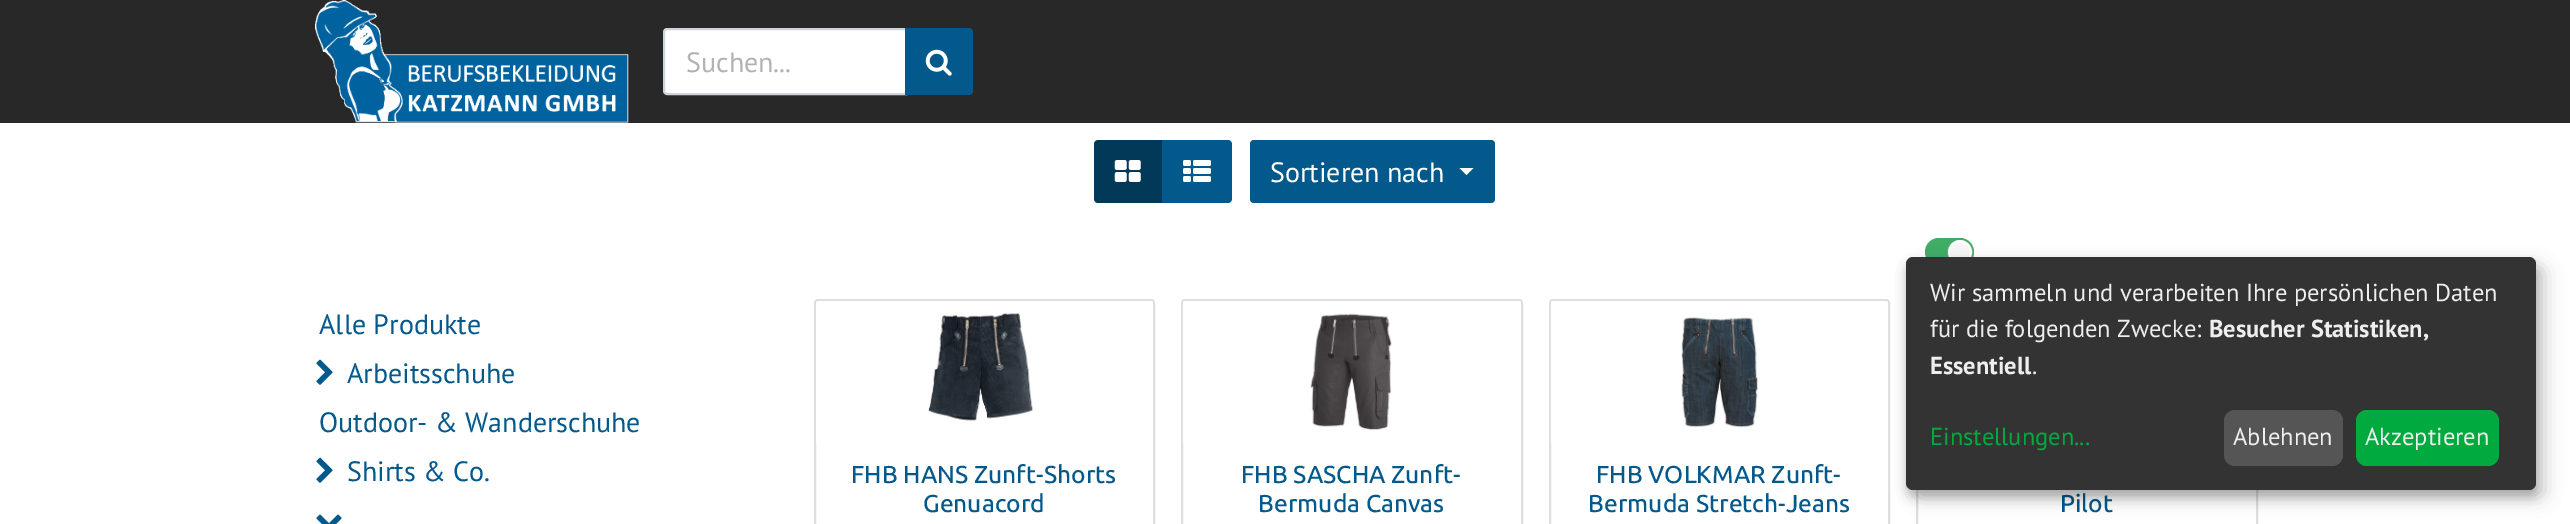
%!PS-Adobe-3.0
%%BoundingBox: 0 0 2570 524
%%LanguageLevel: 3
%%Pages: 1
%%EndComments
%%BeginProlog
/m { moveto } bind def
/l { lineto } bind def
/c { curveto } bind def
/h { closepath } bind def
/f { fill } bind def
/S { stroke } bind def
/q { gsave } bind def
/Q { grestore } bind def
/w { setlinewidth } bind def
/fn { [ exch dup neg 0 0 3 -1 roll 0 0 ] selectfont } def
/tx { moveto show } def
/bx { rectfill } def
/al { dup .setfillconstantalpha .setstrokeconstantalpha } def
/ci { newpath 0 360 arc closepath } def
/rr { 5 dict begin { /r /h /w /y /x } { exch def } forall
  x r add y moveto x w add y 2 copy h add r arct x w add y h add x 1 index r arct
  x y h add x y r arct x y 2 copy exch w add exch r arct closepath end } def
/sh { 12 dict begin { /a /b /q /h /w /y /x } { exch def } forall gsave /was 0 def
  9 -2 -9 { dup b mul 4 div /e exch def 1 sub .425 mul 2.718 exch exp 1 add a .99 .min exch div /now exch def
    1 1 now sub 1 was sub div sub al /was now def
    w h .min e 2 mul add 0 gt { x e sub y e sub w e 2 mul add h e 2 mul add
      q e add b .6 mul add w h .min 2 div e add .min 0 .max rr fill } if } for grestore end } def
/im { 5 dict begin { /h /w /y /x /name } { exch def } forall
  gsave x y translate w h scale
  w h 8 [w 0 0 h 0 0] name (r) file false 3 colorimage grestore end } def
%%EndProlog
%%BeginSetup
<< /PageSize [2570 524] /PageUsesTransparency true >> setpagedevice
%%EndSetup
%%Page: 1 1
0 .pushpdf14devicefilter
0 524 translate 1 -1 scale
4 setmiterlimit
1 setgray
0 0 2570 524 bx
0.157 setgray
0 0 2570 123 bx
(image0.raw) 315 0 314 123 im
1 setgray
667 29 m 906 29 l 906 94 l 667 94 l 665.5 94 664 92.5 664 91 c 664 32 l 664 30.5 665.5 29 667 29 c h q f Q
0.808 0.831 0.855 setrgbcolor
2 w
S
/PTSans-Regular 28 fn
0.702 0.698 0.698 setrgbcolor
(Suchen...) 686 72 tx
0.012 0.349 0.545 setrgbcolor
905 28 m 969 28 l 971 28 973 30 973 32 c 973 91 l 973 93 971 95 969 95 c 905 95 l h f
(image1.raw) 925 49 27 27 im
0.008 0.224 0.349 setrgbcolor
1098 140 m 1162 140 l 1162 203 l 1098 203 l 1096 203 1094 201 1094 199 c 1094 144 l 1094 142 1096 140 1098 140 c h f
(image2.raw) 1114 160 27 22 im
0.012 0.349 0.545 setrgbcolor
1162 140 m 1228 140 l 1230 140 1232 142 1232 144 c 1232 199 l 1232 201 1230 203 1228 203 c 1162 203 l h f
(image3.raw) 1183 160 28 22 im
1250 140 245 63 4 rr f
1 setgray
(Sortieren nach) 1270 182 tx
1459.5 168 m 1473.5 168 l 1466.5 175 l h f
0.251 0.678 0.404 setrgbcolor
1925 238 49 28 14 rr f
0.62 setgray
1948 242 24 24 12 1 1 sh
0.969 setgray
1960 252 11 ci q f Q
1 setgray
S
0.012 0.349 0.545 setrgbcolor
(Alle Produkte) 319 334 tx
(image4.raw) 316 359 17 26 im
(Arbeitsschuhe) 347 383 tx
(Outdoor- & Wanderschuhe) 319 432 tx
(image4.raw) 316 457 17 26 im
(Shirts & Co.) 347 481 tx
(image5.raw) 316 514 26 10 im
0.875 setgray
815 300 339 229 3 rr S
0.9 al
1 setgray
818 301 m 1151 301 l 1152 301 1153 302 1153 303 c 1153 443 l 816 443 l 816 303 l 816 302 817 301 818 301 c h f
1 al
(image6.raw) 928 312 106 109 im
/Ubuntu-Medium 24.5 fn
0.012 0.349 0.545 setrgbcolor
(FHB HANS Zunft-Shorts) 851 483 tx
(Genuacord) 923 512 tx
0.875 setgray
1182 300 340 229 3 rr S
0.9 al
1 setgray
1185 301 m 1519 301 l 1520 301 1521 302 1521 303 c 1521 443 l 1183 443 l 1183 303 l 1183 302 1184 301 1185 301 c h f
1 al
(image7.raw) 1310 313 82 117 im
0.012 0.349 0.545 setrgbcolor
(FHB SASCHA Zunft-) 1241 483 tx
(Bermuda Canvas) 1258 512 tx
0.875 setgray
1550 300 339 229 3 rr S
0.9 al
1 setgray
1553 301 m 1886 301 l 1887 301 1888 302 1888 303 c 1888 443 l 1551 443 l 1551 303 l 1551 302 1552 301 1553 301 c h f
1 al
(image8.raw) 1681 317 78 111 im
0.012 0.349 0.545 setrgbcolor
(FHB VOLKMAR Zunft-) 1596 483 tx
(Bermuda Stretch-Jeans) 1588 512 tx
0.875 setgray
1917 300 340 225 rectstroke
0.012 0.349 0.545 setrgbcolor
(Pilot) 2060 512 tx
0 setgray
1915 266 630 233 7 9 0.19 sh
1906 264 630 233 7 5 0.2 sh
0.2 setgray
1906 257 630 233 7 rr f
/PTSans-Regular 24.5 fn
0.933 setgray
(Wir sammeln und verarbeiten Ihre persönlichen Daten) 1930 301 tx
(für die folgenden Zwecke:) 1930 337 tx
/PTSans-Bold 24.5 fn
(Besucher Statistiken,) 2209 337 tx
(Essentiell) 1930 374 tx
/PTSans-Regular 24.5 fn
(.) 2032 374 tx
0 0.667 0.243 setrgbcolor
(Einstellungen...) 1930 445 tx
0.333 setgray
2224 410 119 56 11 rr f
0.933 setgray
(Ablehnen) 2233 445 tx
0 0.667 0.243 setrgbcolor
2356 410 143 56 11 rr f
0.933 setgray
(Akzeptieren) 2365 445 tx
.poppdf14devicefilter showpage
%%EOF
